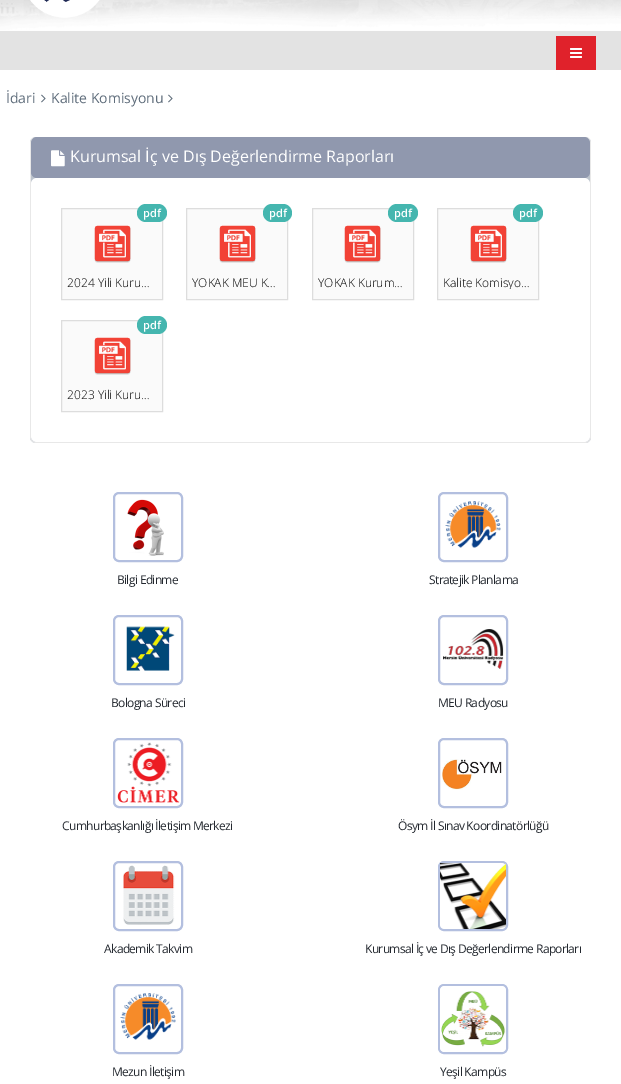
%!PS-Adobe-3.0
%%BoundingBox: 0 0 621 1084
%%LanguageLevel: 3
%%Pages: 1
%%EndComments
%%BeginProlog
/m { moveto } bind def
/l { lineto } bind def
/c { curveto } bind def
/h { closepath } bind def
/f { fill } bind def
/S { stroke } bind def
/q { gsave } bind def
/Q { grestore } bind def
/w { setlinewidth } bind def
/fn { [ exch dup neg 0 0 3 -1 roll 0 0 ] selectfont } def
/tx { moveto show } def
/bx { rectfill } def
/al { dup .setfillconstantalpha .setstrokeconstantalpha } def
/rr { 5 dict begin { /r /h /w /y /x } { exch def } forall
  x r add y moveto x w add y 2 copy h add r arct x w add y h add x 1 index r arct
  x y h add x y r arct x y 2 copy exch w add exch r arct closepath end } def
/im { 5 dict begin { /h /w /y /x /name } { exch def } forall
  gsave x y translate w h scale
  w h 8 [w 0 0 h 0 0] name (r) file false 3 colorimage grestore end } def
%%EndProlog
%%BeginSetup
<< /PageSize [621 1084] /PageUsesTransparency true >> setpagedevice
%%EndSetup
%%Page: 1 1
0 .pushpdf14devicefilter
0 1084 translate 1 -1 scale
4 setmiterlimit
1 setgray
0 0 621 1084 bx
(image0.raw) 0 0 621 70 im
(image1.raw) 30 0 70 18 im
0.878 0.133 0.169 setrgbcolor
556 36 40 34 bx
(image2.raw) 570 48 12 10 im
/OpenSans-Regular 14 fn
0.373 0.427 0.482 setrgbcolor
(İdari) 6 103 tx
(image3.raw) 41 94 5 9 im
(Kalite Komisyonu) 51 103 tx
(image3.raw) 168 94 5 9 im
0.745 0.773 0.808 setrgbcolor
30 137 561 306 6 rr f
0.91 setgray
36 137 m 585 137 l 588 137 591 140 591 143 c 591 437 l 591 440 588 443 585 443 c 36 443 l 33 443 30 440 30 437 c 30 143 l 30 140 33 137 36 137 c h 36 137 m 585 137 l 588 137 590 140 590 143 c 590 437 l 590 440 588 442 585 442 c 36 442 l 33 442 31 440 31 437 c 31 143 l 31 140 33 137 36 137 c h eofill
0.8 al
0.518 0.553 0.651 setrgbcolor
31 137 559 41 6 rr f
1 al
(image4.raw) 51 150 14 17 im
/OpenSans-Regular 16 fn
1 setgray
(Kurumsal İç ve Dış Değerlendirme Raporları) 70 162 tx
31 178 559 264 6 rr f
0.98 setgray
61.5 208.5 m 162.5 208.5 l 162.5 299.5 l 61.5 299.5 l h q f Q
0.867 setgray
S
0.271 0.714 0.686 setrgbcolor
137 204 30 18 9 rr f
/OpenSans-SemiBold 11 fn
1 setgray
(pdf) 143 217 tx
(image5.raw) 94 225 37 38 im
/OpenSans-Light 12 fn
0 setgray
(2024 Yili Kuru…) 67 287 tx
0.98 setgray
186.5 208.5 m 287.5 208.5 l 287.5 299.5 l 186.5 299.5 l h q f Q
0.867 setgray
S
0.271 0.714 0.686 setrgbcolor
263 204 29 18 9 rr f
/OpenSans-SemiBold 11 fn
1 setgray
(pdf) 269 217 tx
(image6.raw) 219 225 37 38 im
/OpenSans-Light 12 fn
0 setgray
(YOKAK MEU K…) 192 287 tx
0.98 setgray
312.5 208.5 m 413.5 208.5 l 413.5 299.5 l 312.5 299.5 l h q f Q
0.867 setgray
S
0.271 0.714 0.686 setrgbcolor
388 204 30 18 9 rr f
/OpenSans-SemiBold 11 fn
1 setgray
(pdf) 394 217 tx
(image5.raw) 344 225 37 38 im
/OpenSans-Light 12 fn
0 setgray
(YOKAK Kurum…) 318 287 tx
0.98 setgray
437.5 208.5 m 538.5 208.5 l 538.5 299.5 l 437.5 299.5 l h q f Q
0.867 setgray
S
0.271 0.714 0.686 setrgbcolor
513 204 30 18 9 rr f
/OpenSans-SemiBold 11 fn
1 setgray
(pdf) 519 217 tx
(image6.raw) 470 225 37 38 im
q
438 271 100 18 rectclip
/OpenSans-Light 12 fn
0 setgray
(Kalite Komisyo…) 443 287 tx
Q
0.98 setgray
61.5 320.5 m 162.5 320.5 l 162.5 411.5 l 61.5 411.5 l h q f Q
0.867 setgray
S
0.271 0.714 0.686 setrgbcolor
137 316 30 18 9 rr f
1 setgray
(pdf) 143 329 tx
(image5.raw) 94 337 37 38 im
/OpenSans-Light 12 fn
0 setgray
(2023 Yili Kuru…) 67 399 tx
0.702 0.749 0.875 setrgbcolor
2 w
114 493 68 68 5 rr S
(image7.raw) 127 499 37 57 im
/OpenSans-Regular 12 fn
0.137 0.157 0.184 setrgbcolor
117 584 m -0.65 0 (Bilgi Edinme) ashow
0.702 0.749 0.875 setrgbcolor
439 493 68 68 5 rr S
(image8.raw) 445 501 56 47 im
0.137 0.157 0.184 setrgbcolor
429 584 m -0.65 0 (Stratejik Planlama) ashow
0.702 0.749 0.875 setrgbcolor
114 616 68 68 5 rr S
(image9.raw) 126 626 49 45 im
0.137 0.157 0.184 setrgbcolor
111 707 m -0.65 0 (Bologna Süreci) ashow
0.702 0.749 0.875 setrgbcolor
439 616 68 68 5 rr S
(image10.raw) 443 629 61 40 im
0.137 0.157 0.184 setrgbcolor
438 707 m -0.65 0 (MEU Radyosu) ashow
0.702 0.749 0.875 setrgbcolor
114 739 68 68 5 rr S
(image11.raw) 117 742 63 61 im
0.137 0.157 0.184 setrgbcolor
62 830 m -0.65 0 (Cumhurbaşkanlığı İletişim Merkezi) ashow
0.702 0.749 0.875 setrgbcolor
439 739 68 68 5 rr S
(image12.raw) 442 759 60 31 im
0.137 0.157 0.184 setrgbcolor
398 830 m -0.65 0 (Ösym İl Sınav Koordinatörlüğü) ashow
0.702 0.749 0.875 setrgbcolor
114 862 68 68 5 rr S
(image13.raw) 123 865 52 60 im
0.137 0.157 0.184 setrgbcolor
104 953 m -0.65 0 (Akademik Takvim) ashow
0.702 0.749 0.875 setrgbcolor
439 862 68 68 5 rr S
(image14.raw) 440 863 66 66 im
0.137 0.157 0.184 setrgbcolor
365 953 m -0.65 0 (Kurumsal İç ve Dış Değerlendirme Raporları) ashow
0.702 0.749 0.875 setrgbcolor
114 985 68 68 5 rr S
(image8.raw) 120 993 56 47 im
0.137 0.157 0.184 setrgbcolor
112 1076 m -0.65 0 (Mezun İletişim) ashow
0.702 0.749 0.875 setrgbcolor
439 985 68 68 5 rr S
(image15.raw) 440 986 66 66 im
0.137 0.157 0.184 setrgbcolor
440 1076 m -0.65 0 (Yeşil Kampüs) ashow
.poppdf14devicefilter showpage
%%EOF
